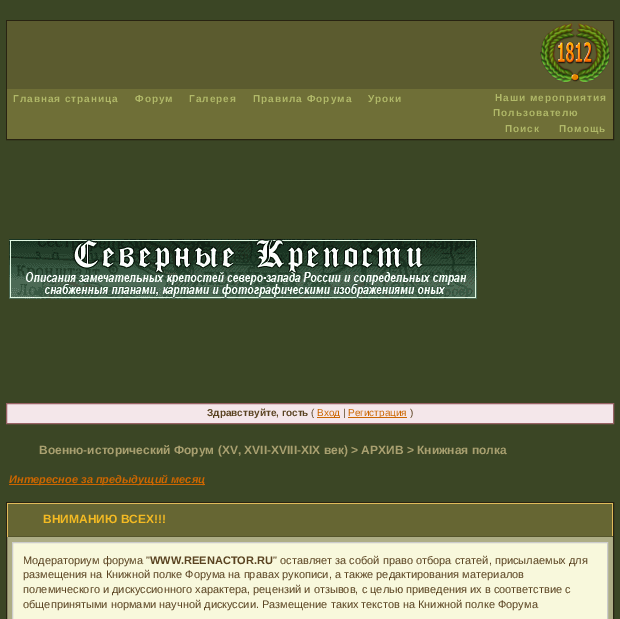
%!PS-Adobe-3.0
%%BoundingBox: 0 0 620 619
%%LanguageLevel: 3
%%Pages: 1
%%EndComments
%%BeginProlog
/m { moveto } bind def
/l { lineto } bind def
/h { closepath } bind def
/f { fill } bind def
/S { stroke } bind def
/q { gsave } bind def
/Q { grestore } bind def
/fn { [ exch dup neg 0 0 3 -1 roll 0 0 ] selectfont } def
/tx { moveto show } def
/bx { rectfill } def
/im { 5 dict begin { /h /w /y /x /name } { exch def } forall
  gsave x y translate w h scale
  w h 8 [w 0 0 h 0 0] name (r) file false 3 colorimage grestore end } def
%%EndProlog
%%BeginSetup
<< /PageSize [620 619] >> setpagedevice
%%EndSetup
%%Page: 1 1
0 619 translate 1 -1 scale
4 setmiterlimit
0.231 0.275 0.145 setrgbcolor
0 0 620 619 bx
0.157 0.137 0.071 setrgbcolor
6.5 20.5 607 119 rectstroke
0.357 0.357 0.184 setrgbcolor
7 21 606 68 bx
(image0.raw) 540 23 70 60 im
0.435 0.435 0.216 setrgbcolor
7 89 606 50 bx
/LiberationSans-Bold 10 fn
0.69 0.722 0.408 setrgbcolor
13 102 m 1 0 (Главная страница) ashow
135 102 m 1 0 (Форум) ashow
189 102 m 1 0 (Галерея) ashow
253 102 m 1 0 (Правила Форума) ashow
368 102 m 1 0 (Уроки) ashow
495 101 m 1 0 (Наши мероприятия) ashow
493 116 m 1 0 (Пользователю) ashow
505 132 m 1 0 (Поиск) ashow
559 132 m 1 0 (Помощь) ashow
(image1.raw) 9 239 468 60 im
0.957 0.906 0.918 setrgbcolor
6.5 403.5 m 613.5 403.5 l 613.5 423.5 l 6.5 423.5 l h q f Q
0.596 0.384 0.396 setrgbcolor
S
0.349 0.259 0.125 setrgbcolor
(Здравствуйте, гость) 207 416 tx
/LiberationSans-Regular 10 fn
(\() 311 416 tx
0.8 0.4 0 setrgbcolor
317 417 23 1 bx
(Вход) 317 416 tx
0.349 0.259 0.125 setrgbcolor
(|) 343 416 tx
0.8 0.4 0 setrgbcolor
348 417 59 1 bx
(Регистрация) 348 416 tx
0.349 0.259 0.125 setrgbcolor
(\)) 410 416 tx
/LiberationSans-Bold 12 fn
0.663 0.627 0.439 setrgbcolor
(Военно-исторический Форум \(XV, XVII-XVIII-XIX век\) > АРХИВ > Книжная полка) 39 454 tx
0.8 0.4 0 setrgbcolor
9 484 196 1 bx
/LiberationSans-BoldItalic 11 fn
(Интересное за предыдущий месяц) 9 483 tx
0.678 0.678 0.522 setrgbcolor
7 537 606 82 bx
0.157 0.137 0.071 setrgbcolor
6.5 502.5 607 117 rectstroke
0.4 0.4 0.2 setrgbcolor
8 504 604 32 bx
0.878 0.733 0.353 setrgbcolor
7 503 606 1 bx
612 503 1 34 bx
0.333 0.333 0.169 setrgbcolor
7 536 606 1 bx
0.878 0.733 0.353 setrgbcolor
7 503 1 34 bx
/LiberationSans-Bold 12 fn
0.953 0.729 0.137 setrgbcolor
(ВНИМАНИЮ ВСЕХ!!!) 43 523 tx
0.973 0.973 0.863 setrgbcolor
12.5 542.5 m 607.5 542.5 l 607.5 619.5 l 12.5 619.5 l h q f Q
0.8 setgray
S
/LiberationSans-Regular 11 fn
0.349 0.259 0.125 setrgbcolor
(Модераториум форума ") 23 564 tx
/LiberationSans-Bold 11 fn
(WWW.REENACTOR.RU) 150 564 tx
/LiberationSans-Regular 11 fn
(" оставляет за собой право отбора статей, присылаемых для) 273 564 tx
(размещения на Книжной полке Форума на правах рукописи, а также редактирования материалов) 23 578 tx
(полемического и дискуссионного характера, рецензий и отзывов, с целью приведения их в соответствие с) 23 593 tx
(общепринятыми нормами научной дискуссии. Размещение таких текстов на Книжной полке Форума) 23 608 tx
showpage
%%EOF
